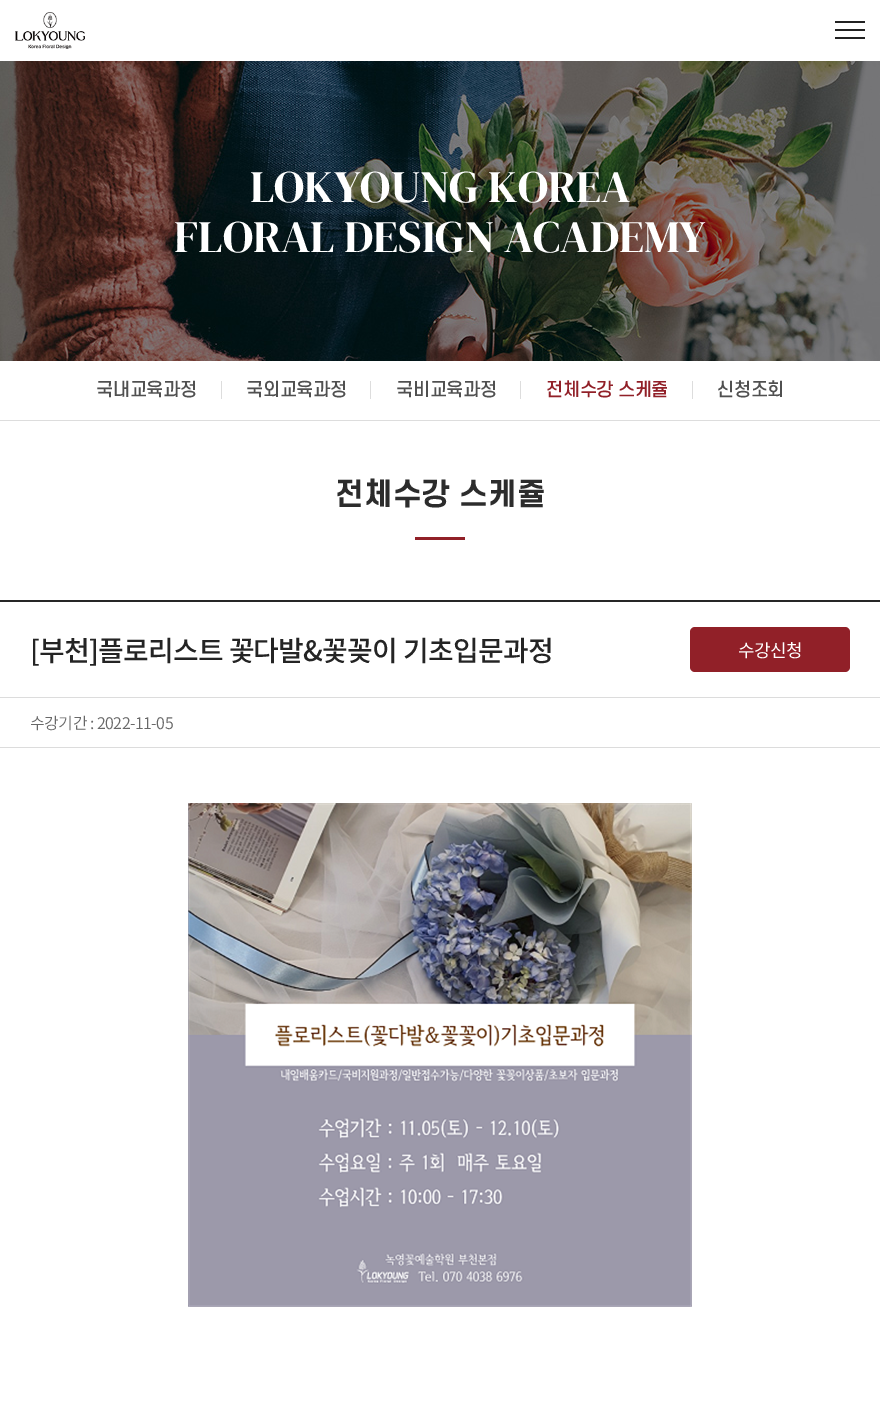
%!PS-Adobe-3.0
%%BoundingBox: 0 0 880 1420
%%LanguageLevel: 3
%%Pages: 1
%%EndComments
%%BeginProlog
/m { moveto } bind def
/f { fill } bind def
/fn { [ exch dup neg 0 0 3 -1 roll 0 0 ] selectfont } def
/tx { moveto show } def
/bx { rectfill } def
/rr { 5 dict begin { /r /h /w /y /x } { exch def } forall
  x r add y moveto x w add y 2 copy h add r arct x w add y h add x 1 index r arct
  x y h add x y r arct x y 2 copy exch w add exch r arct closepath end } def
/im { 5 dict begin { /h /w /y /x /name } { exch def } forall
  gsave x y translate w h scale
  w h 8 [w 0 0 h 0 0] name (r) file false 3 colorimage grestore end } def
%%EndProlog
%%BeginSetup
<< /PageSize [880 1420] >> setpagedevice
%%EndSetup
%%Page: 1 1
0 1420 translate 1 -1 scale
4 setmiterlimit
1 setgray
0 0 880 1420 bx
(image0.raw) 15 12 70 37 im
0.133 setgray
835 29 30 2 bx
835 21 30 2 bx
835 37 30 2 bx
(image1.raw) 0 61 880 300 im
/DMSerifDisplay-Regular 45 fn
1 setgray
(LOKYOUNG KOREA) 250 202 tx
(FLORAL DESIGN ACADEMY) 174 252 tx
0.867 setgray
0 420 880 1 bx
/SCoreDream-Medium 18 fn
0.314 setgray
96 396 m -0.5 0 (국내교육과정) ashow
0.867 setgray
221 381 1 18 bx
0.314 setgray
246 396 m -0.5 0 (국외교육과정) ashow
0.867 setgray
370 381 1 18 bx
0.314 setgray
396 396 m -0.5 0 (국비교육과정) ashow
0.867 setgray
520 381 1 18 bx
0.569 0.125 0.157 setrgbcolor
546 396 m -0.5 0 (전체수강 스케쥴) ashow
0.867 setgray
692 381 1 18 bx
0.314 setgray
717 396 m -0.5 0 (신청조회) ashow
/SCoreDream-Bold 30 fn
0.173 setgray
(전체수강 스케쥴) 335 505 tx
0.569 0.125 0.157 setrgbcolor
415 537 50 3 bx
0.149 setgray
0 600 880 2 bx
0.863 setgray
0 697 880 1 bx
/NotoSansKR-Medium 28 fn
0.141 setgray
30 661 m -0.8 0 ([부천]플로리스트 꽃다발&꽃꽂이 기초입문과정) ashow
0.569 0.125 0.157 setrgbcolor
690 627 160 45 5 rr f
/NotoSansKR-Regular 18 fn
1 setgray
738 657 m -0.5 0 (수강신청) ashow
0.863 setgray
0 747 880 1 bx
/NotoSansKR-Light 16 fn
0.408 setgray
30 729 m -0.5 0 (수강기간 : 2022-11-05) ashow
(image2.raw) 188 803 504 504 im
showpage
%%EOF
